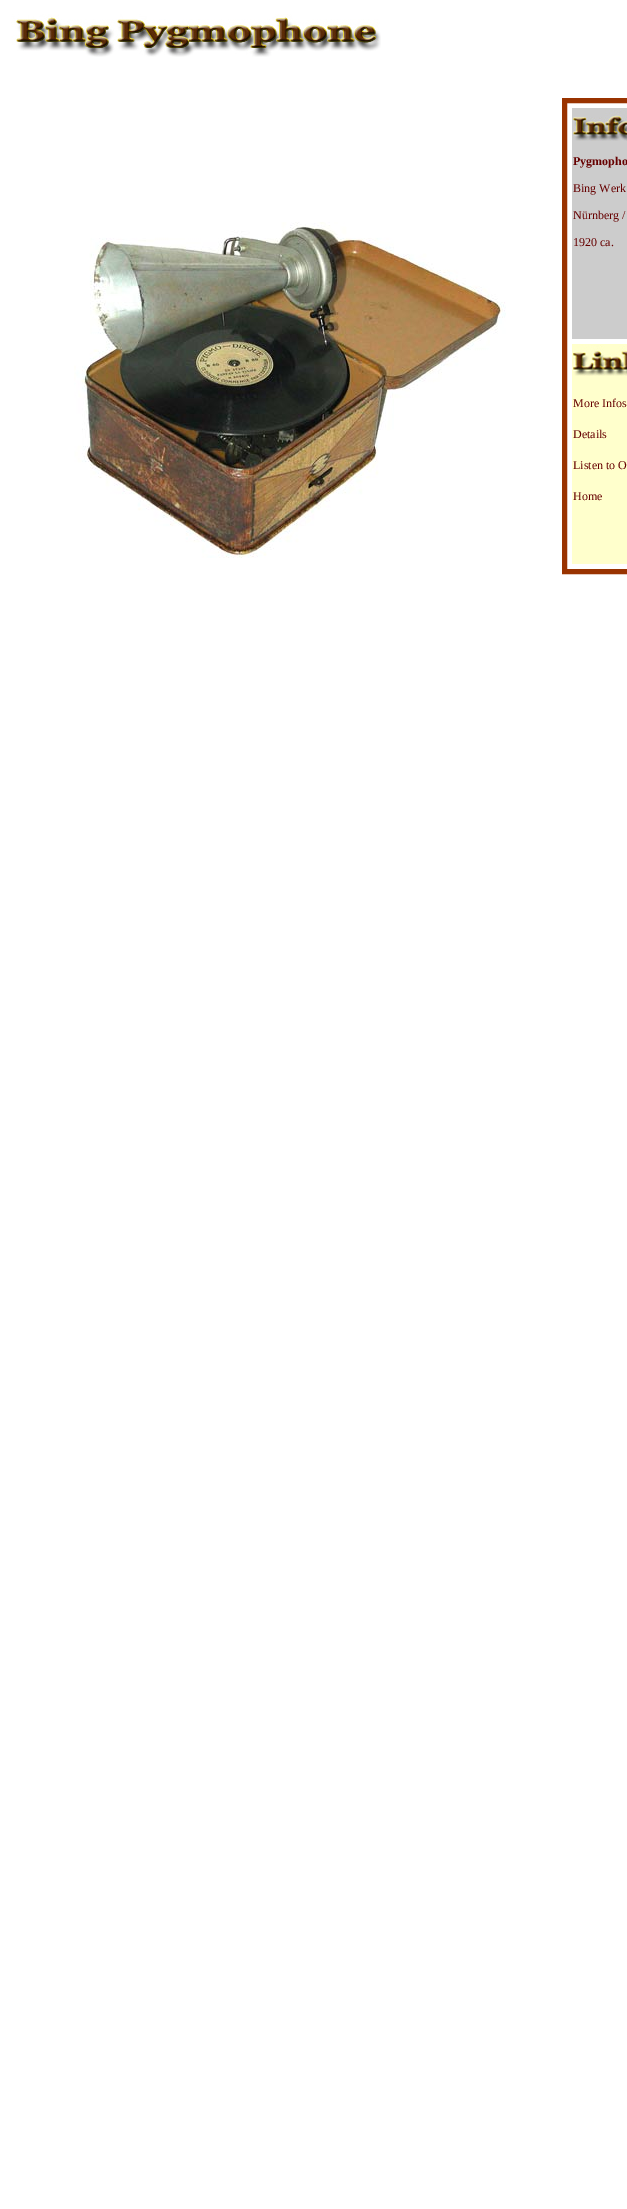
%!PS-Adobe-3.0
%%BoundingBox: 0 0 627 2209
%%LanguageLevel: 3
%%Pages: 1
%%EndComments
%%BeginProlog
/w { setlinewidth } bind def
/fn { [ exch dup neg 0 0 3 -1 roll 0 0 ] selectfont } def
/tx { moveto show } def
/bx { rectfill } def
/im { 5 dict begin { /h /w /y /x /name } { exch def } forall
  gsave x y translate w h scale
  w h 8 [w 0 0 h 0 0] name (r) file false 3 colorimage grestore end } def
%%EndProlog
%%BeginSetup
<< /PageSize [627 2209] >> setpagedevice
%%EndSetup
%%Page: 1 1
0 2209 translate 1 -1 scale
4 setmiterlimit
1 setgray
0 0 627 2209 bx
(image0.raw) 11 14 370 43 im
(image1.raw) 74 222 432 336 im
0.6 0.2 0 setrgbcolor
5 w
564.5 100.5 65 471 rectstroke
0.8 setgray
572 108 55 231 bx
(image2.raw) 573 110 54 31 im
/LiberationSerif-Bold 12 fn
0.4 0 0 setrgbcolor
(Pygmopho) 573 165 tx
/LiberationSerif-Regular 12 fn
(Bing Werk) 573 192 tx
(Nürnberg /) 573 219 tx
(1920 ca.) 573 246 tx
1 1 0.8 setrgbcolor
572 344 55 220 bx
(image3.raw) 573 345 54 31 im
0.4 0 0 setrgbcolor
(More Infos) 573 407 tx
(Details) 573 438 tx
(Listen to O) 573 469 tx
(Home) 573 500 tx
showpage
%%EOF
